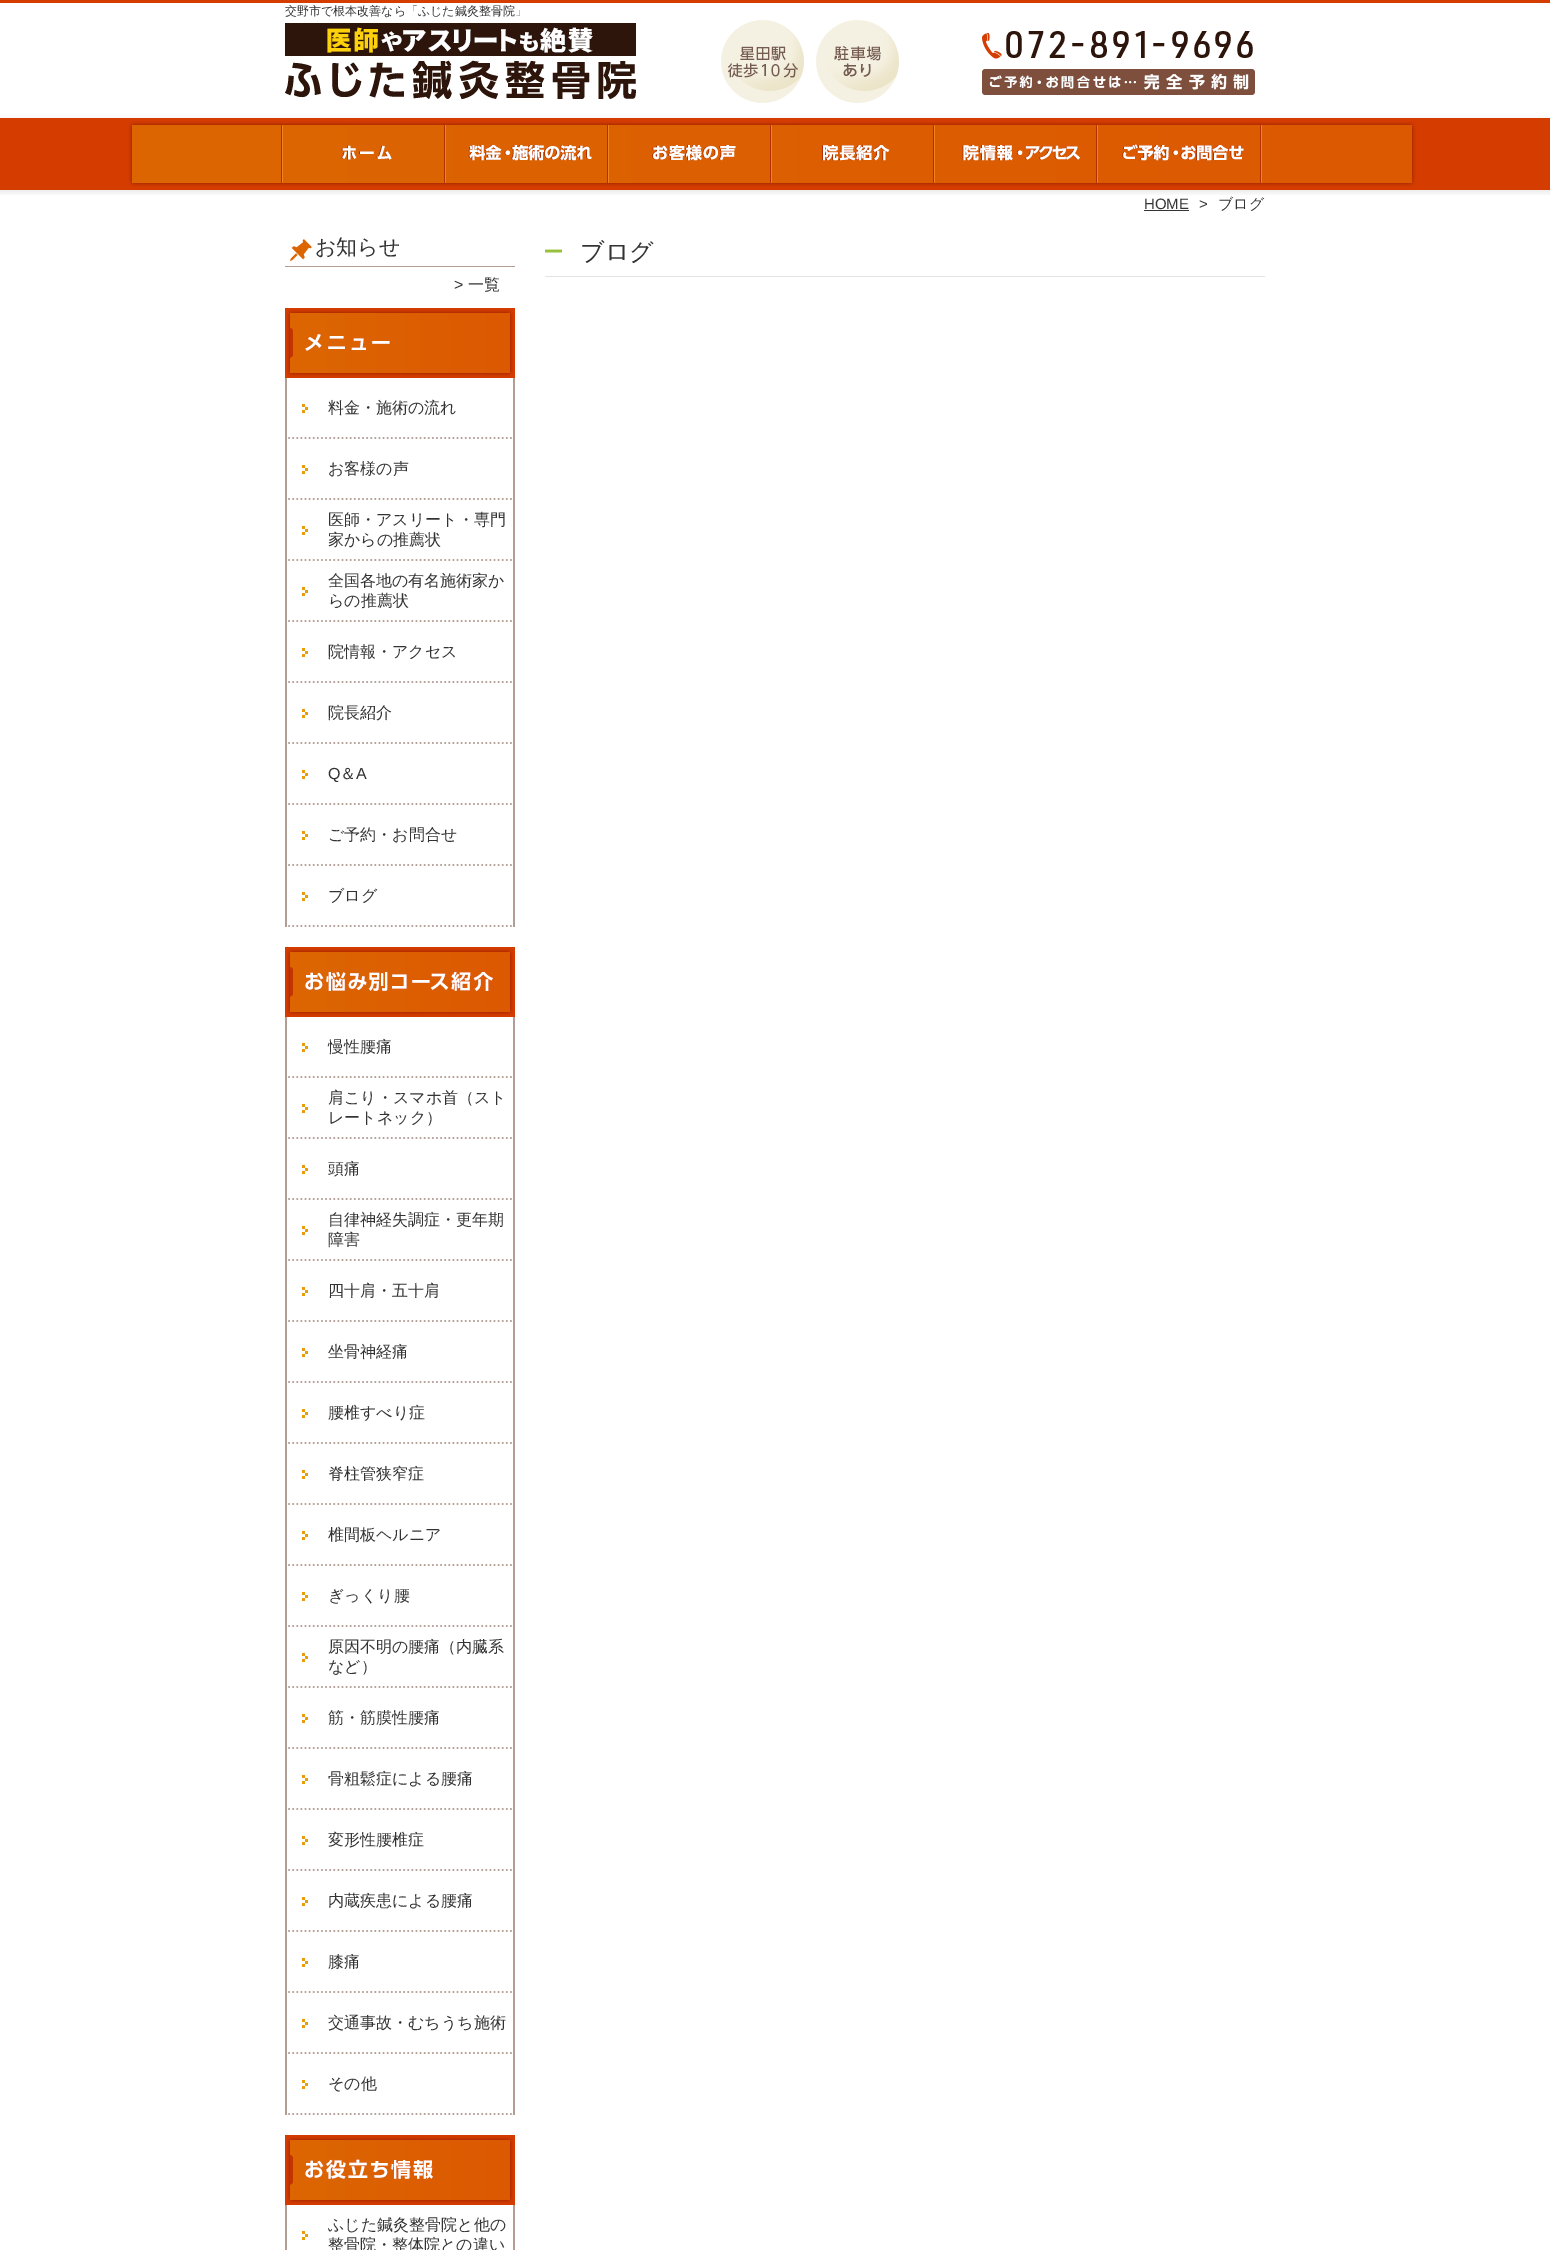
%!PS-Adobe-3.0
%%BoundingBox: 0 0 1550 2250
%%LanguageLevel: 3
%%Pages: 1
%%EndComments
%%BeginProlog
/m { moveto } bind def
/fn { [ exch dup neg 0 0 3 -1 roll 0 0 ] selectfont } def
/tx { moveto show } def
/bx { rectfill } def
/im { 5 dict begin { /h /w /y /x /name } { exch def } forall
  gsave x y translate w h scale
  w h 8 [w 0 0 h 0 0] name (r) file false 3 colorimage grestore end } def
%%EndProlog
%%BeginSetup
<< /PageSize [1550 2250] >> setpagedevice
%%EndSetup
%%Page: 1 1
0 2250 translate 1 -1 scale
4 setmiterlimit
1 setgray
0 0 1550 2250 bx
(image0.raw) 0 0 1550 195 im
/WenQuanYiZenHei-Medium 12 fn
0.2 setgray
(交野市で根本改善なら「ふじた鍼灸整骨院」) 285 15 tx
(image1.raw) 285 23 351 77 im
(image2.raw) 982 31 273 64 im
(image3.raw) 341 145 51 15 im
(image4.raw) 468 145 124 16 im
(image5.raw) 652 145 84 16 im
(image6.raw) 822 145 68 16 im
(image7.raw) 962 145 118 16 im
(image8.raw) 1122 144 122 17 im
/LiberationSans-Regular 15 fn
(HOME) 1144 209 tx
1144 210 45 1 bx
1199 209 m 10 0 (>) ashow
/WenQuanYiZenHei-Medium 15 fn
(ブログ) 1218 209 tx
(image9.raw) 285 239 230 28 im
/WenQuanYiZenHei-Medium 21 fn
(お知らせ) 315 254 tx
/LiberationSans-Regular 16 fn
(>) 454 290 tx
/WenQuanYiZenHei-Medium 16 fn
(一覧) 468 290 tx
(image10.raw) 285 308 230 70 im
(image11.raw) 285 378 230 61 im
(料金・施術の流れ) 328 413 tx
(image11.raw) 285 439 230 61 im
(お客様の声) 328 474 tx
(image11.raw) 285 500 230 61 im
(医師・アスリート・専門) 328 525 tx
(家からの推薦状) 328 545 tx
(image11.raw) 285 561 230 61 im
(全国各地の有名施術家か) 328 586 tx
(らの推薦状) 328 606 tx
(image11.raw) 285 622 230 61 im
(院情報・アクセス) 328 657 tx
(image11.raw) 285 683 230 61 im
(院長紹介) 328 718 tx
(image11.raw) 285 744 230 61 im
/LiberationSans-Regular 16 fn
(Q) 328 779 tx
/WenQuanYiZenHei-Medium 16 fn
(＆) 340 779 tx
/LiberationSans-Regular 16 fn
(A) 356 779 tx
(image11.raw) 285 805 230 61 im
/WenQuanYiZenHei-Medium 16 fn
(ご予約・お問合せ) 328 840 tx
(image11.raw) 285 866 230 61 im
(ブログ) 328 901 tx
(image12.raw) 285 947 230 70 im
(image11.raw) 285 1017 230 61 im
(慢性腰痛) 328 1052 tx
(image11.raw) 285 1078 230 61 im
(肩こり・スマホ首（スト) 328 1103 tx
(レートネック）) 328 1123 tx
(image11.raw) 285 1139 230 61 im
(頭痛) 328 1174 tx
(image11.raw) 285 1200 230 61 im
(自律神経失調症・更年期) 328 1225 tx
(障害) 328 1245 tx
(image11.raw) 285 1261 230 61 im
(四十肩・五十肩) 328 1296 tx
(image11.raw) 285 1322 230 61 im
(坐骨神経痛) 328 1357 tx
(image11.raw) 285 1383 230 61 im
(腰椎すべり症) 328 1418 tx
(image11.raw) 285 1444 230 61 im
(脊柱管狭窄症) 328 1479 tx
(image11.raw) 285 1505 230 61 im
(椎間板ヘルニア) 328 1540 tx
(image11.raw) 285 1566 230 61 im
(ぎっくり腰) 328 1601 tx
(image11.raw) 285 1627 230 61 im
(原因不明の腰痛（内臓系) 328 1652 tx
(など）) 328 1672 tx
(image11.raw) 285 1688 230 61 im
(筋・筋膜性腰痛) 328 1723 tx
(image11.raw) 285 1749 230 61 im
(骨粗鬆症による腰痛) 328 1784 tx
(image11.raw) 285 1810 230 61 im
(変形性腰椎症) 328 1845 tx
(image11.raw) 285 1871 230 61 im
(内蔵疾患による腰痛) 328 1906 tx
(image11.raw) 285 1932 230 61 im
(膝痛) 328 1967 tx
(image11.raw) 285 1993 230 61 im
(交通事故・むちうち施術) 328 2028 tx
(image11.raw) 285 2054 230 61 im
(その他) 328 2089 tx
(image13.raw) 285 2135 230 70 im
(image14.raw) 285 2205 230 45 im
(ふじた鍼灸整骨院と他の) 328 2230 tx
(整骨院・整体院との違い) 328 2250 tx
(image15.raw) 545 249 720 28 im
/WenQuanYiZenHei-Medium 24 fn
(ブログ) 580 260 tx
showpage
%%EOF
